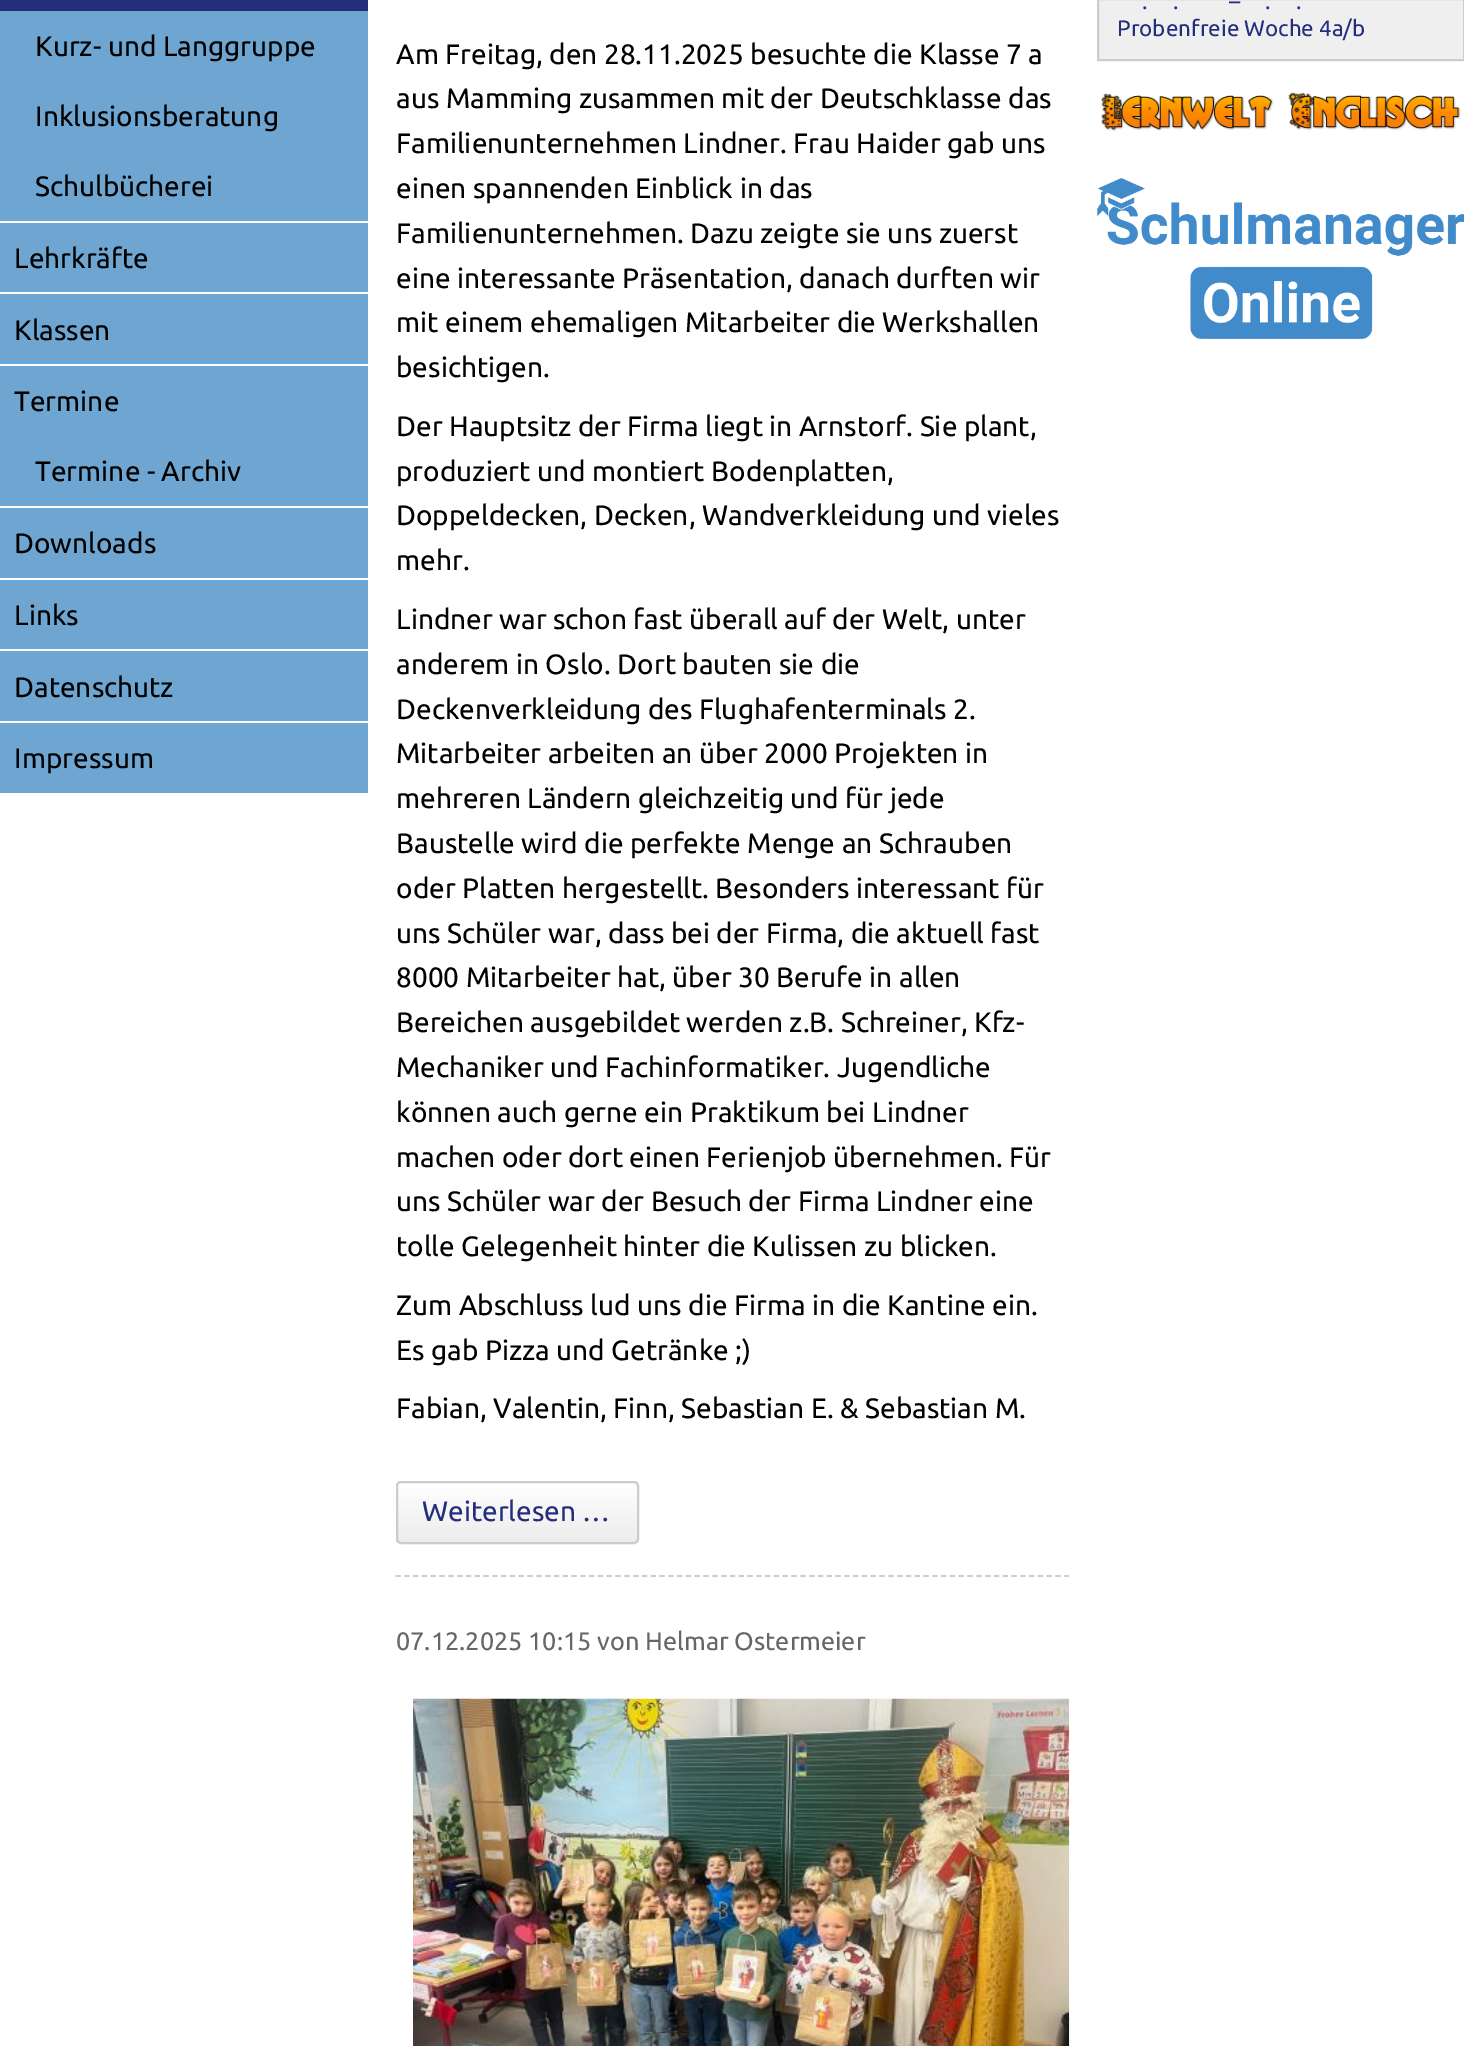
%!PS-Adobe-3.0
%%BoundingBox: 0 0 1464 2046
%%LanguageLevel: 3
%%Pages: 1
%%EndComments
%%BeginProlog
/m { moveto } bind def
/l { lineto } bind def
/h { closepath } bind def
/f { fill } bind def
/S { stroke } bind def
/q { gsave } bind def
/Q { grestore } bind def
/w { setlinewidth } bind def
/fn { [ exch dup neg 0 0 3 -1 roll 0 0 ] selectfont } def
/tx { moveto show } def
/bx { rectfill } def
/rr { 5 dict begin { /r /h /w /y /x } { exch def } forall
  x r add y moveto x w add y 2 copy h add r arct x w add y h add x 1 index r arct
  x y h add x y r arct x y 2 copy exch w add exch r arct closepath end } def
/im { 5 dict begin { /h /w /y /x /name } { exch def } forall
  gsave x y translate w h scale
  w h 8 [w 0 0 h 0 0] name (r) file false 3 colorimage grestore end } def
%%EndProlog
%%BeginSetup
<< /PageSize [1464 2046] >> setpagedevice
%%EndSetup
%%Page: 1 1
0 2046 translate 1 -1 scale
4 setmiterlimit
1 setgray
0 0 1464 2046 bx
0.937 setgray
1098 -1 m 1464 -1 l 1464 60 l 1098 60 l h q f Q
0.8 setgray
2 w
S
/Ubuntu-Regular 22.4 fn
0.141 0.184 0.486 setrgbcolor
(–) 1229 9 tx
(.) 1142 9 tx
(.) 1173 9 tx
(.) 1265 9 tx
(.) 1296 9 tx
(Probenfreie Woche 4a/b) 1117 36 tx
(image0.raw) 1101 92 360 39 im
(image1.raw) 1097 178 367 161 im
0.431 0.651 0.82 setrgbcolor
0 11 368 782 bx
1 setgray
0 221 368 2 bx
0.141 0.184 0.486 setrgbcolor
0 0 368 11 bx
/Ubuntu-Regular 28 fn
0 setgray
(Kurz- und Langgruppe) 35 56 tx
(Inklusionsberatung) 35 126 tx
(Schulbücherei) 35 196 tx
1 setgray
0 292 368 2 bx
0 setgray
(Lehrkräfte) 14 268 tx
1 setgray
0 364 368 2 bx
0 setgray
(Klassen) 14 340 tx
1 setgray
0 506 368 2 bx
0 setgray
(Termine) 14 411 tx
(Termine - Archiv) 35 481 tx
1 setgray
0 578 368 2 bx
0 setgray
(Downloads) 14 553 tx
1 setgray
0 649 368 2 bx
0 setgray
(Links) 14 625 tx
1 setgray
0 721 368 2 bx
0 setgray
(Datenschutz) 14 697 tx
(Impressum) 14 768 tx
0.8 setgray
1.8 w
[5.25 3.55] 0 setdash
395.5 1576 m 1069 1576 l S
0 setgray
(Am Freitag, den 28.11.2025 besuchte die Klasse 7 a) 396 64 tx
(aus Mamming zusammen mit der Deutschklasse das) 396 108 tx
(Familienunternehmen Lindner. Frau Haider gab uns) 396 153 tx
(einen spannenden Einblick in das) 396 198 tx
(Familienunternehmen. Dazu zeigte sie uns zuerst) 396 243 tx
(eine interessante Präsentation, danach durften wir) 396 288 tx
(mit einem ehemaligen Mitarbeiter die Werkshallen) 396 332 tx
(besichtigen.) 396 377 tx
(Der Hauptsitz der Firma liegt in Arnstorf. Sie plant,) 396 436 tx
(produziert und montiert Bodenplatten,) 396 481 tx
(Doppeldecken, Decken, Wandverkleidung und vieles) 396 525 tx
(mehr.) 396 570 tx
(Lindner war schon fast überall auf der Welt, unter) 396 629 tx
(anderem in Oslo. Dort bauten sie die) 396 674 tx
(Deckenverkleidung des Flughafenterminals 2.) 396 719 tx
(Mitarbeiter arbeiten an über 2000 Projekten in) 396 763 tx
(mehreren Ländern gleichzeitig und für jede) 396 808 tx
(Baustelle wird die perfekte Menge an Schrauben) 396 853 tx
(oder Platten hergestellt. Besonders interessant für) 396 898 tx
(uns Schüler war, dass bei der Firma, die aktuell fast) 396 943 tx
(8000 Mitarbeiter hat, über 30 Berufe in allen) 396 987 tx
(Bereichen ausgebildet werden z.B. Schreiner, Kfz-) 396 1032 tx
(Mechaniker und Fachinformatiker. Jugendliche) 396 1077 tx
(können auch gerne ein Praktikum bei Lindner) 396 1122 tx
(machen oder dort einen Ferienjob übernehmen. Für) 396 1167 tx
(uns Schüler war der Besuch der Firma Lindner eine) 396 1211 tx
(tolle Gelegenheit hinter die Kulissen zu blicken.) 396 1256 tx
(Zum Abschluss lud uns die Firma in die Kantine ein.) 396 1315 tx
(Es gab Pizza und Getränke ;\)) 396 1360 tx
(Fabian, Valentin, Finn, Sebastian E. & Sebastian M.) 396 1418 tx
q
396 1481 243 63 5 rr clip newpath
q 396 1482 m 639 1482 l 639 1542 l 396 1542 l h clip newpath
<< /ShadingType 2 /ColorSpace /DeviceRGB /Coords [517 1482 517 1542] /Extend [true true] /Function << /FunctionType 2 /Domain [0 1] /C0 [1 1 1] /C1 [0.925 0.925 0.925] /N 1 >> >> shfill Q
Q
0.8 setgray
2 w
[] 0 setdash
397 1482 241 61 4 rr S
0.141 0.184 0.486 setrgbcolor
(Weiterlesen …) 422 1521 tx
/Ubuntu-Regular 25.25 fn
0.4 setgray
(07.12.2025 10:15 von Helmar Ostermeier) 396 1650 tx
(image2.raw) 413 1698 657 348 im
showpage
%%EOF
